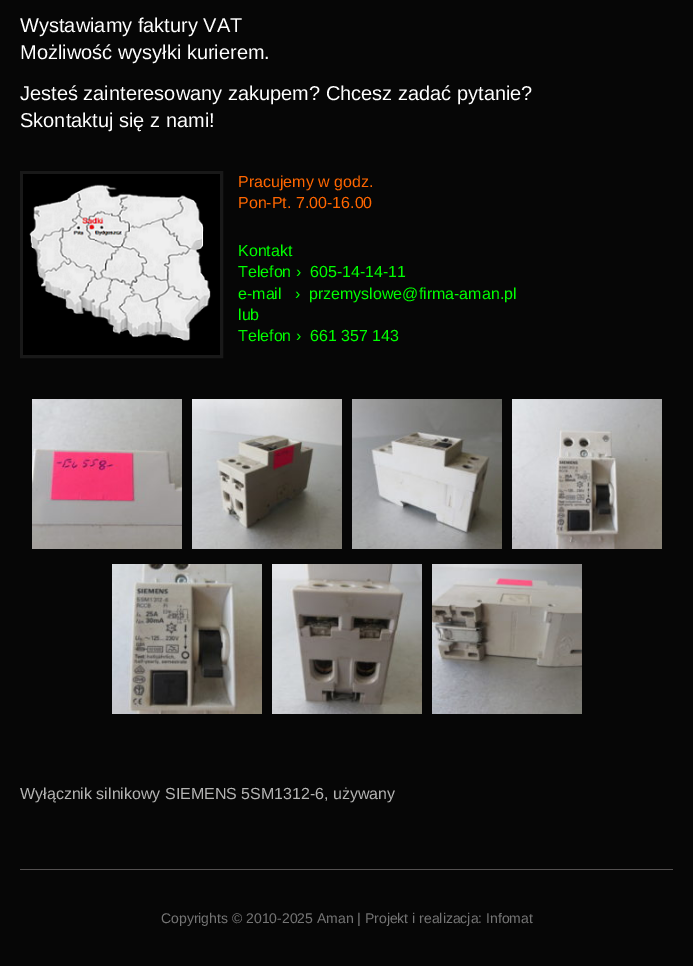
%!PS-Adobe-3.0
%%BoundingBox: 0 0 693 966
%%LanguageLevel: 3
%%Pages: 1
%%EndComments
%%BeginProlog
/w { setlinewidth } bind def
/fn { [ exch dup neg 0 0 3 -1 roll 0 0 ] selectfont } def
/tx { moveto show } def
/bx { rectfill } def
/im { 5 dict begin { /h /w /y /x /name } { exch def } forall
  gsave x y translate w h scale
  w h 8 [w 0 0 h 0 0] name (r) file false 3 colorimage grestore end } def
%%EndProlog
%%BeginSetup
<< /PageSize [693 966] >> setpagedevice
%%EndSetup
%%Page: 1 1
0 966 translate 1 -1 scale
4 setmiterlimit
0.024 setgray
0 0 693 966 bx
/LiberationSans-Regular 20 fn
1 setgray
(Wystawiamy faktury VAT) 20 32 tx
(Możliwość wysyłki kurierem.) 20 59 tx
(Jesteś zainteresowany zakupem? Chcesz zadać pytanie?) 20 100 tx
(Skontaktuj się z nami!) 20 127 tx
0.098 setgray
3 w
21.5 172.5 200 184 rectstroke
(image0.raw) 23 174 197 181 im
/LiberationSans-Regular 16 fn
1 0.4 0 setrgbcolor
(Pracujemy w godz.) 238 187 tx
(Pon-Pt. 7.00-16.00) 238 208 tx
0 1 0 setrgbcolor
(Kontakt) 238 256 tx
(Telefon ›  605-14-14-11) 238 277 tx
(e-mail   ›) 238 299 tx
(przemyslowe@firma-aman.pl) 309 299 tx
(lub) 238 320 tx
(Telefon ›  661 357 143) 238 341 tx
(image1.raw) 32 399 150 150 im
(image2.raw) 192 399 150 150 im
(image3.raw) 352 399 150 150 im
(image4.raw) 512 399 150 150 im
(image5.raw) 112 564 150 150 im
(image6.raw) 272 564 150 150 im
(image7.raw) 432 564 150 150 im
0.706 0.706 0.702 setrgbcolor
(Wyłącznik silnikowy SIEMENS 5SM1312-6, używany) 20 799 tx
0.325 0.314 0.314 setrgbcolor
20 869 653 1 bx
/LiberationSans-Regular 14 fn
0.459 setgray
(Copyrights © 2010-2025 Aman | Projekt i realizacja: Infomat) 161 923 tx
showpage
%%EOF
